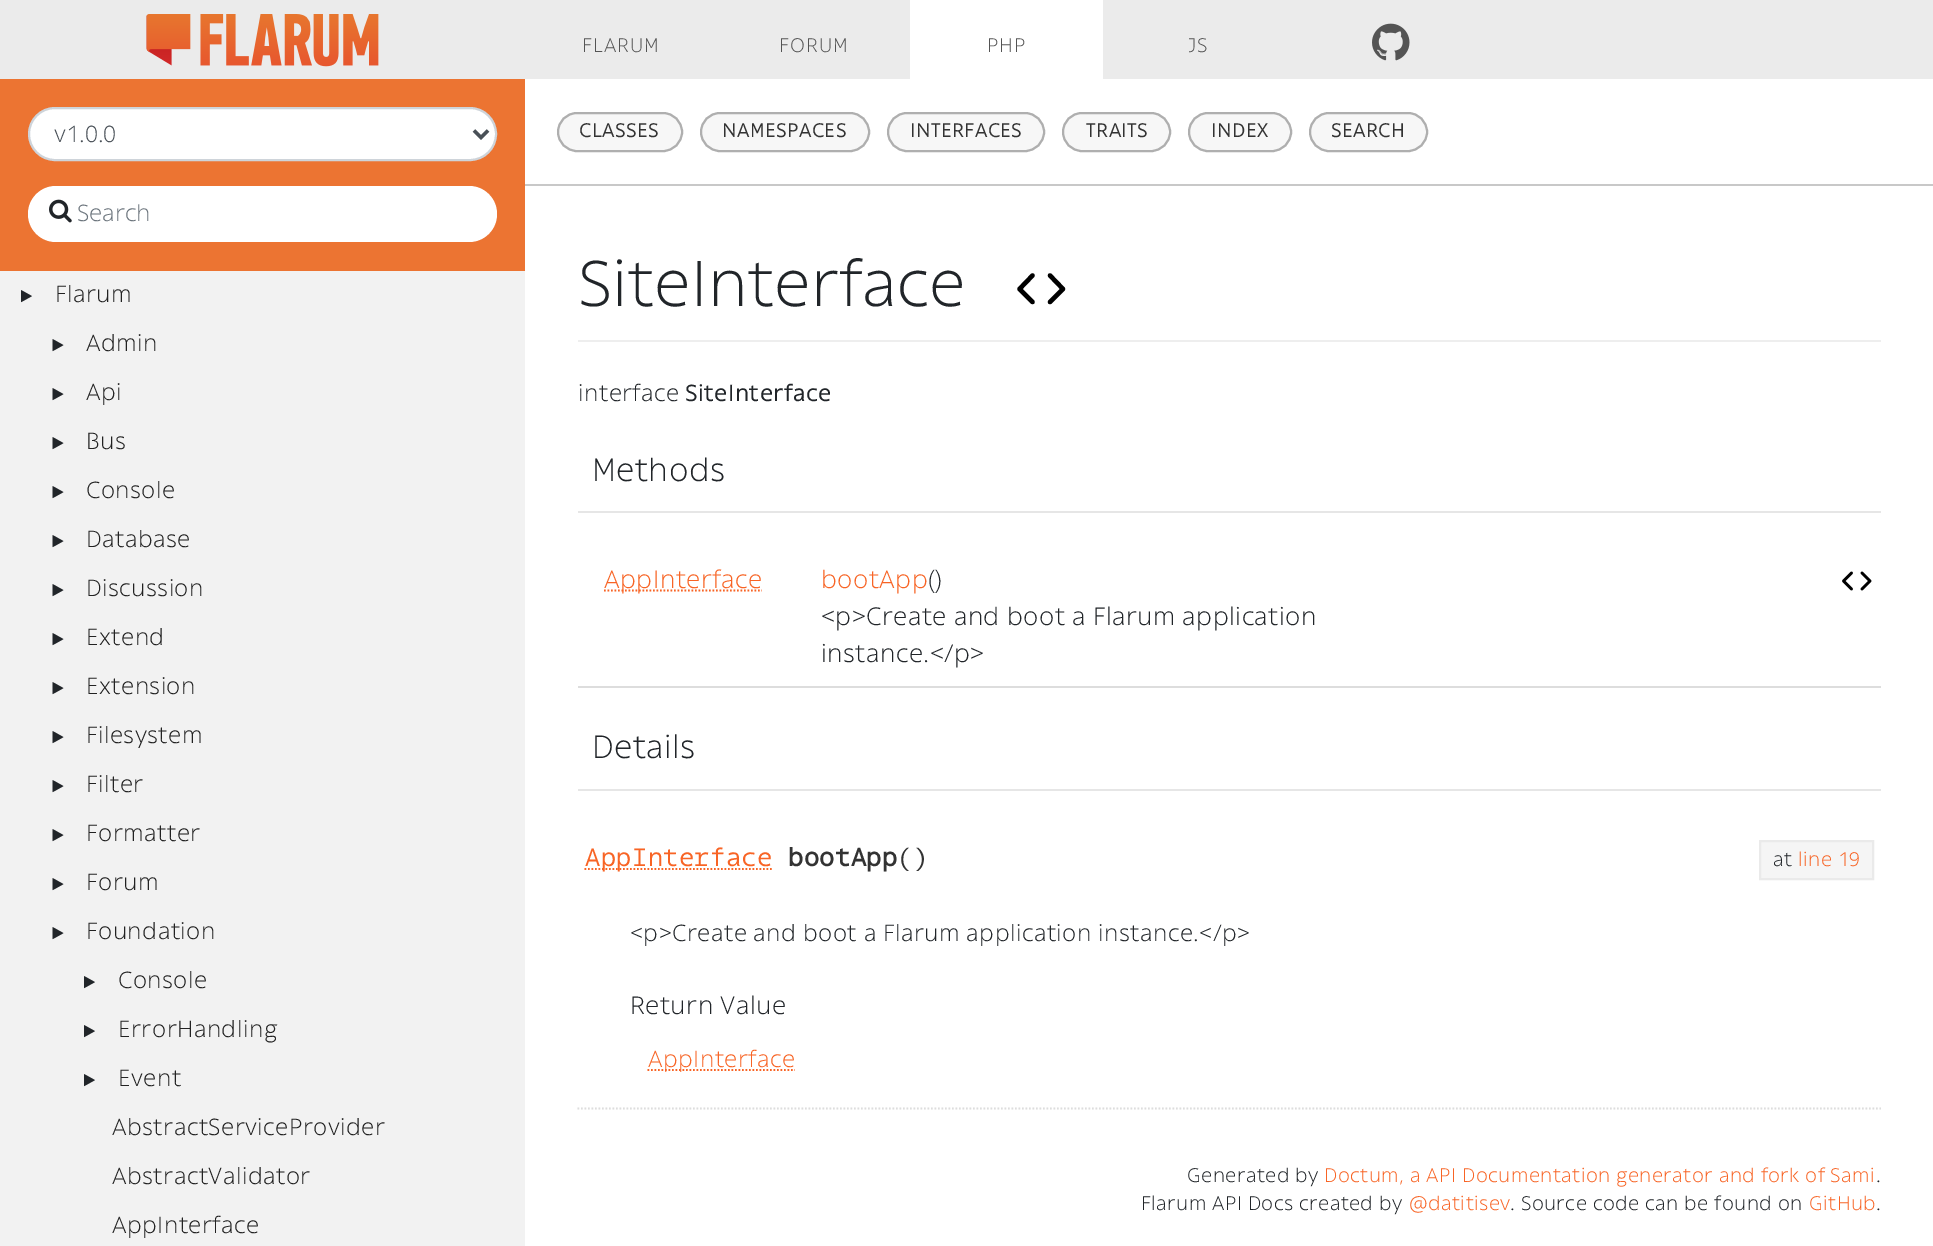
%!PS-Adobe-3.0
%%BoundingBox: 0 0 1933 1246
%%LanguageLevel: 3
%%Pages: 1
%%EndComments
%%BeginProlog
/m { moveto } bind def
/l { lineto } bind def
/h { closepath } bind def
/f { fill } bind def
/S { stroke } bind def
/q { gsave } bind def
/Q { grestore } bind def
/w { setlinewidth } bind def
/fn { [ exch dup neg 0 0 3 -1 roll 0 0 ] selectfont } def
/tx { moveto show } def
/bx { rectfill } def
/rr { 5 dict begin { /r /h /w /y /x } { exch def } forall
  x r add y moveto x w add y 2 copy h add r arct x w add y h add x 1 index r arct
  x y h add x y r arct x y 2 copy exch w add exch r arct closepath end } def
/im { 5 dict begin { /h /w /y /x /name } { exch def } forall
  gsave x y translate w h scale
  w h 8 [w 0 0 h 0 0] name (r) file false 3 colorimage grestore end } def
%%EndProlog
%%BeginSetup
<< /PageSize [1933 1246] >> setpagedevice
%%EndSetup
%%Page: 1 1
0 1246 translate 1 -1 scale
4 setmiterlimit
1 setgray
0 0 1933 1246 bx
0.922 setgray
0 0 1933 79 bx
(image0.raw) 146 14 233 53 im
/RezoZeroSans-Light 19.25 fn
0.329 setgray
582 52 m 1 0 (FLARUM) ashow
779 52 m 1 0 (FORUM) ashow
1 setgray
910 0 193 79 bx
0.329 setgray
987 52 m 1 0 (PHP) ashow
1188 52 m 1 0 (JS) ashow
(image1.raw) 1372 23 38 38 im
0.925 0.455 0.196 setrgbcolor
0 79 525 192 bx
1 setgray
29 108 467 52 26 rr q f Q
0.808 0.831 0.855 setrgbcolor
2 w
S
0.286 0.314 0.341 setrgbcolor
3.5 w
474 130.5 m 481 137.5 l 488 130.5 l S
/RezoZeroSans-Light 22.75 fn
(v1.0.0) 54 142 tx
1 setgray
28 186 469 56 28 rr f
(image2.raw) 49 199 23 24 im
0.424 0.459 0.49 setrgbcolor
(Search) 77 221 tx
0.949 setgray
0 271 525 975 bx
(image3.raw) 21 290 11 13 im
0.133 setgray
55 302 m 0.45 0 (Flarum) ashow
(image4.raw) 52 339 12 13 im
86 351 m 0.45 0 (Admin) ashow
(image4.raw) 52 388 12 13 im
86 400 m 0.45 0 (Api) ashow
(image4.raw) 52 437 12 13 im
86 449 m 0.45 0 (Bus) ashow
(image4.raw) 52 486 12 13 im
86 498 m 0.45 0 (Console) ashow
(image4.raw) 52 535 12 13 im
86 547 m 0.45 0 (Database) ashow
(image4.raw) 52 584 12 13 im
86 596 m 0.45 0 (Discussion) ashow
(image4.raw) 52 633 12 13 im
86 645 m 0.45 0 (Extend) ashow
(image4.raw) 52 682 12 13 im
86 694 m 0.45 0 (Extension) ashow
(image4.raw) 52 731 12 13 im
86 743 m 0.45 0 (Filesystem) ashow
(image4.raw) 52 780 12 13 im
86 792 m 0.45 0 (Filter) ashow
(image4.raw) 52 829 12 13 im
86 841 m 0.45 0 (Formatter) ashow
(image4.raw) 52 878 12 13 im
86 890 m 0.45 0 (Forum) ashow
(image4.raw) 52 927 12 13 im
86 939 m 0.45 0 (Foundation) ashow
(image3.raw) 84 976 11 13 im
118 988 m 0.45 0 (Console) ashow
(image3.raw) 84 1025 11 13 im
118 1037 m 0.45 0 (ErrorHandling) ashow
(image3.raw) 84 1074 11 13 im
118 1086 m 0.45 0 (Event) ashow
112 1135 m 0.45 0 (AbstractServiceProvider) ashow
112 1184 m 0.45 0 (AbstractValidator) ashow
112 1233 m 0.45 0 (AppInterface) ashow
0.784 setgray
525 184 1408 2 bx
0.969 setgray
558 113 124 38 19 rr q f Q
0.686 setgray
2 w
S
/RezoZeroSans-Regular 19.25 fn
0.2 setgray
579 137 m 0.45 0 (CLASSES) ashow
0.969 setgray
701 113 168 38 19 rr q f Q
0.686 setgray
S
0.2 setgray
722 137 m 0.45 0 (NAMESPACES) ashow
0.969 setgray
888 113 156 38 19 rr q f Q
0.686 setgray
S
0.2 setgray
910 137 m 0.45 0 (INTERFACES) ashow
0.969 setgray
1063 113 107 38 19 rr q f Q
0.686 setgray
S
0.2 setgray
1086 137 m 0.45 0 (TRAITS) ashow
0.969 setgray
1189 113 102 38 19 rr q f Q
0.686 setgray
S
0.2 setgray
1211 137 m 0.45 0 (INDEX) ashow
0.969 setgray
1310 113 117 38 19 rr q f Q
0.686 setgray
S
0.2 setgray
1331 137 m 0.45 0 (SEARCH) ashow
0.933 setgray
578 340 1303 2 bx
/RezoZeroSans-Light 63 fn
0.129 0.145 0.161 setrgbcolor
578 306 m 0.45 0 (SiteInterface) ashow
0 setgray
4.4 w
1 setlinecap
1 setlinejoin
1050 302 m 1063 289 l 1050 275.5 l 1032.5 275.5 m 1019.5 289 l 1032.5 302 l S
/RezoZeroSans-Light 22.75 fn
0.129 0.145 0.161 setrgbcolor
578 401 m 0.45 0 (interface) ashow
/RezoZeroSans-Regular 22.75 fn
685 401 m 0.45 0 (SiteInterface) ashow
0.902 setgray
578 511 1303 2 bx
/RezoZeroSans-Light 31.5 fn
0.129 0.145 0.161 setrgbcolor
592 481 m 0.45 0 (Methods) ashow
0.867 setgray
578 686 1303 2 bx
0.973 0.392 0.145 setrgbcolor
1.8 w
0 setlinecap
0 setlinejoin
[1.75 1.75] 0 setdash
604 590.5 m 762 590.5 l S
/RezoZeroSans-Light 24.5 fn
604 588 m 0.45 0 (AppInterface) ashow
821 588 m 0.45 0 (bootApp) ashow
0.129 0.145 0.161 setrgbcolor
928 588 m 0.45 0 (\(\)) ashow
821 625 m 0.45 0 (<p>Create and boot a Flarum application) ashow
821 662 m 0.45 0 (instance.</p>) ashow
0 setgray
2.6 w
1 setlinecap
1 setlinejoin
[] 0 setdash
1862 589 m 1870 581 l 1862 573 l 1851.5 573 m 1843.5 581 l 1851.5 589 l S
0.902 setgray
578 789 1303 2 bx
/RezoZeroSans-Light 31.5 fn
0.129 0.145 0.161 setrgbcolor
592 758 m 0.45 0 (Details) ashow
0.867 setgray
1.8 w
0 setlinecap
0 setlinejoin
[1.75 1.75] 0 setdash
577.5 1108.5 m 1881 1108.5 l S
0.973 0.392 0.145 setrgbcolor
584.5 869 m 772 869 l S
/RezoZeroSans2-Regular 24.5 fn
585 866 m 0.45 0 (AppInterface) ashow
/RezoZeroSans-Bold 24.5 fn
0.2 setgray
788 866 m 0.45 0 (bootApp) ashow
/RezoZeroSans2-Regular 24.5 fn
897 866 m 0.45 0 (\(\)) ashow
0.961 setgray
1760 841 m 1873 841 l 1873 879 l 1760 879 l h q f Q
0.918 setgray
2 w
[] 0 setdash
S
/RezoZeroSans-Light 19.25 fn
0.129 0.145 0.161 setrgbcolor
1773 866 m 0.45 0 (at) ashow
0.973 0.392 0.145 setrgbcolor
1798 866 m 0.45 0 (line 19) ashow
/RezoZeroSans-Light 22.75 fn
0.129 0.145 0.161 setrgbcolor
630 941 m 0.45 0 (<p>Create and boot a Flarum application instance.</p>) ashow
/RezoZeroSans-Light 24.5 fn
630 1014 m 0.45 0 (Return Value) ashow
0.973 0.392 0.145 setrgbcolor
1.8 w
[1.75 1.75] 0 setdash
647.5 1070 m 795 1070 l S
/RezoZeroSans-Light 22.75 fn
648 1067 m 0.45 0 (AppInterface) ashow
/RezoZeroSans-Light 19.25 fn
0.129 0.145 0.161 setrgbcolor
1187 1182 m 0.45 0 (Generated by) ashow
0.973 0.392 0.145 setrgbcolor
1324 1182 m 0.45 0 (Doctum, a API Documentation generator and fork of Sami) ashow
0.129 0.145 0.161 setrgbcolor
1876 1182 m 0.45 0 (.) ashow
1141 1210 m 0.45 0 (Flarum API Docs created by) ashow
0.973 0.392 0.145 setrgbcolor
1409 1210 m 0.45 0 (@datitisev) ashow
0.129 0.145 0.161 setrgbcolor
1510 1210 m 0.45 0 (. Source code can be found on) ashow
0.973 0.392 0.145 setrgbcolor
1809 1210 m 0.45 0 (GitHub) ashow
0.129 0.145 0.161 setrgbcolor
1876 1210 m 0.45 0 (.) ashow
showpage
%%EOF
